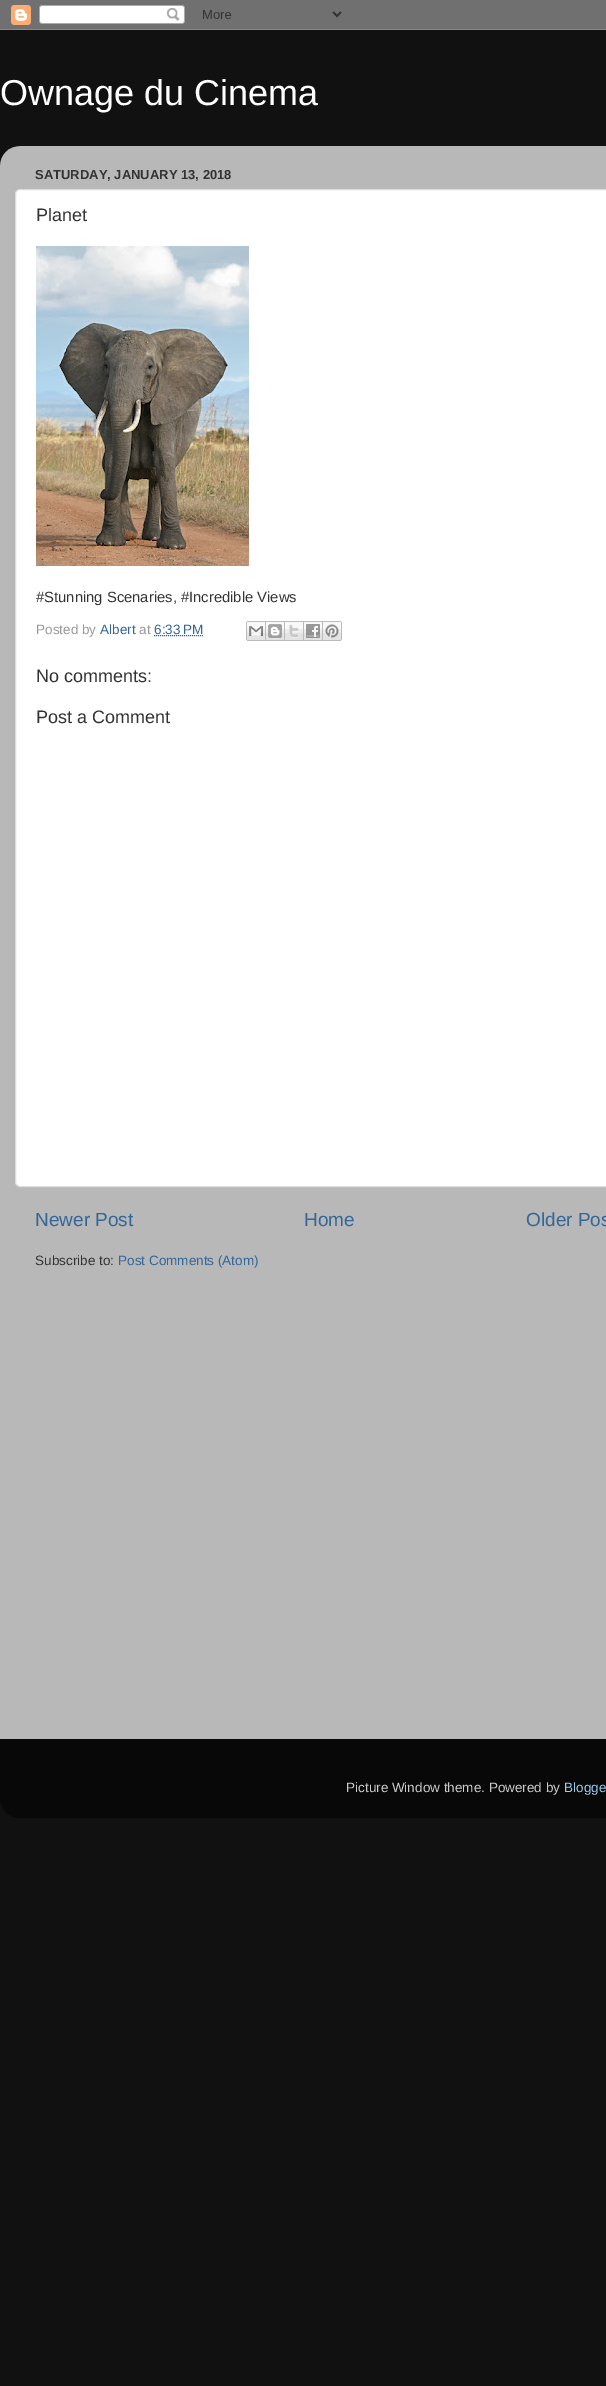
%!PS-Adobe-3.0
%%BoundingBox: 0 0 606 2386
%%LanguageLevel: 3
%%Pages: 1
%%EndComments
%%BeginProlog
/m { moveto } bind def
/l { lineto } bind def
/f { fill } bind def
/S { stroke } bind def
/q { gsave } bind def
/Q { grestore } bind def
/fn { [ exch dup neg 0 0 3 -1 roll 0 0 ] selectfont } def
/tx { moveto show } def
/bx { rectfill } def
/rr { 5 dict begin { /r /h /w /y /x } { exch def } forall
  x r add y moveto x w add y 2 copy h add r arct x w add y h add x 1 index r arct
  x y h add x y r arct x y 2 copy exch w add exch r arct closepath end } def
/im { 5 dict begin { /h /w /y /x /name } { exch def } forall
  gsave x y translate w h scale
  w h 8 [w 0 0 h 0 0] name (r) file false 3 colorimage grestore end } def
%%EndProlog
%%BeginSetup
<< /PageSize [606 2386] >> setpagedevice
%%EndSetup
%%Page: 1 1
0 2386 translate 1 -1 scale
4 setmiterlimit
0.067 setgray
0 0 606 2386 bx
(image0.raw) 0 0 606 30 im
/LiberationSans-Regular 36 fn
1 setgray
(Ownage du Cinema) 0 105 tx
(image1.raw) 0 146 606 1593 im
/LiberationSans-Bold 13 fn
0.2 setgray
(SATURDAY, JANUARY 13, 2018) 35 179 tx
1 setgray
15.5 189.5 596 997 4.5 rr q f Q
0.867 setgray
S
/LiberationSans-Regular 18 fn
0.2 setgray
(Planet) 36 221 tx
(image2.raw) 36 246 213 320 im
/LiberationSans-Regular 14.8 fn
(#Stunning Scenaries, #Incredible Views) 36 602 tx
/LiberationSans-Regular 13.5 fn
0.6 setgray
(Posted by) 36 634 tx
0.2 0.4 0.6 setrgbcolor
(Albert) 100 634 tx
0.6 setgray
(at) 139 634 tx
0.2 0.4 0.6 setrgbcolor
(6:33 PM) 154 634 tx
[1 1] 0 setdash
154 635.5 m 203 635.5 l S
(image3.raw) 246 621 20 20 im
(image4.raw) 266 621 19 20 im
(image5.raw) 285 621 19 20 im
(image6.raw) 304 621 19 20 im
(image7.raw) 323 621 19 20 im
/LiberationSans-Regular 18 fn
0.2 setgray
(No comments:) 36 682 tx
(Post a Comment) 36 723 tx
/LiberationSans-Regular 19 fn
0.2 0.4 0.6 setrgbcolor
(Newer Post) 35 1226 tx
(Home) 304 1226 tx
(Older Pos) 526 1226 tx
/LiberationSans-Regular 13.5 fn
0.2 setgray
(Subscribe to:) 35 1265 tx
0.2 0.4 0.6 setrgbcolor
(Post Comments \(Atom\)) 118 1265 tx
(image8.raw) 0 1739 606 79 im
0.8 setgray
(Picture Window theme. Powered by) 346 1792 tx
0.6 0.8 0.933 setrgbcolor
(Blogge) 564 1792 tx
showpage
%%EOF
